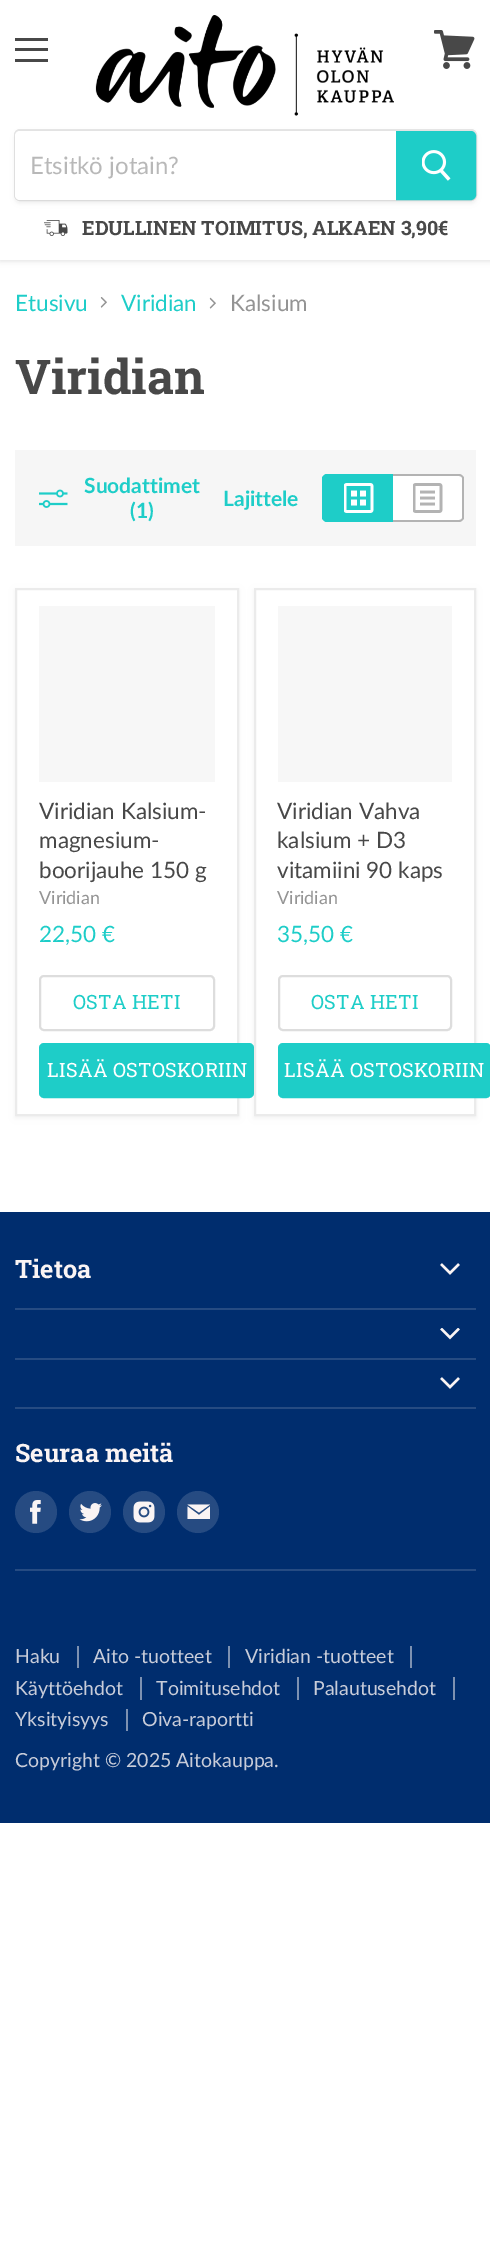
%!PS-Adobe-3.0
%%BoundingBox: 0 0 490 2241
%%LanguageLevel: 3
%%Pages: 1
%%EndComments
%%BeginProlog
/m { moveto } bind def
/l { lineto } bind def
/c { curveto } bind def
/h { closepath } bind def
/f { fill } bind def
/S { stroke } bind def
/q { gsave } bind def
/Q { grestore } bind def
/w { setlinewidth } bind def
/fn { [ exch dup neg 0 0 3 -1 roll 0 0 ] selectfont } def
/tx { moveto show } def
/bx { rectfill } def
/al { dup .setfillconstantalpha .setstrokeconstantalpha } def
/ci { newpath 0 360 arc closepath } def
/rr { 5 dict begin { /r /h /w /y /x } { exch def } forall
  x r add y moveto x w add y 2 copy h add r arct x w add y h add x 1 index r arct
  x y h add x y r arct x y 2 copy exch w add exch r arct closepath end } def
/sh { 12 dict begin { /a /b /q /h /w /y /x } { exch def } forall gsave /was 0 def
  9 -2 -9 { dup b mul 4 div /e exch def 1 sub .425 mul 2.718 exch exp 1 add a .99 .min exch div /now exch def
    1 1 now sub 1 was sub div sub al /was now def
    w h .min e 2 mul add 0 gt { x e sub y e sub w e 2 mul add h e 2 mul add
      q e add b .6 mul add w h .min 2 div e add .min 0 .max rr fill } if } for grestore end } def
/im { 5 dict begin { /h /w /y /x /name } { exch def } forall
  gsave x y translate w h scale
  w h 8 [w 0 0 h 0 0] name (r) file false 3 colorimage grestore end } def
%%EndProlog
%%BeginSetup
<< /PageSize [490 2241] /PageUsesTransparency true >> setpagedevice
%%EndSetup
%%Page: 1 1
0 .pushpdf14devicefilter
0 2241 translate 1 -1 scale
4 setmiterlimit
1 setgray
0 0 490 2241 bx
0.498 setgray
0 2 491 259 0 3 0.25 sh
1 setgray
0 0 490 260 bx
0.282 setgray
15 38 33 3 bx
15 48 33 3 bx
15 59 33 3 bx
(image0.raw) 434 30 41 39 im
(image1.raw) 95 15 299 101 im
0.498 setgray
14 132 463 72 6 2 0.11 sh
0.2 al
2 w
15 130 461 70 5 rr S
1 al
1 setgray
20 131 m 396 131 l 396 200 l 20 200 l 17 200 15 198 15 195 c 15 136 l 15 133 17 131 20 131 c h f
/Lato-Regular 24 fn
0.722 setgray
(Etsitkö jotain?) 30 174 tx
0.118 0.804 0.784 setrgbcolor
397 132 m 471 132 l 473 132 475 134 475 136 c 475 195 l 475 197 473 199 471 199 c 397 199 l h q f Q
S
(image2.raw) 422 150 29 31 im
(image3.raw) 44 220 24 16 im
/RobotoSlab-Bold 19.7 fn
0.282 setgray
(EDULLINEN TOIMITUS, ALKAEN 3,90€) 82 235 tx
/Lato-Regular 22.5 fn
0.118 0.804 0.784 setrgbcolor
(Etusivu) 15 311 tx
(image4.raw) 100 297 7 11 im
(Viridian) 121 311 tx
(image5.raw) 209 297 7 12 im
0.58 setgray
(Kalsium) 230 311 tx
/RobotoSlab-Bold 48 fn
0.282 setgray
(Viridian) 15 394 tx
0.965 setgray
15 450 461 96 bx
(image6.raw) 39 489 29 19 im
/Lato-Bold 21 fn
0.118 0.804 0.784 setrgbcolor
(Suodattimet) 84 493 tx
(\(1\)) 130 518 tx
(Lajittele) 223 506 tx
328 474 m 393 474 l 393 522 l 328 522 l 325 522 323 520 323 517 c 323 479 l 323 476 325 474 328 474 c h f
327 474 m 393 474 l 393 522 l 327 522 l 325 522 322 520 322 518 c 322 478 l 322 476 325 474 327 474 c h 327 476 m 393 476 l 393 520 l 327 520 l 325 520 324 519 324 518 c 324 478 l 324 477 325 476 327 476 c h eofill
(image7.raw) 344 483 30 30 im
1 setgray
393 474 m 459 474 l 462 474 464 476 464 479 c 464 517 l 464 520 462 522 459 522 c 393 522 l h f
0.702 setgray
393 474 m 459 474 l 461 474 464 476 464 478 c 464 518 l 464 520 461 522 459 522 c 393 522 l h 393 476 m 459 476 l 461 476 462 477 462 478 c 462 518 l 462 519 461 520 459 520 c 393 520 l h eofill
(image8.raw) 413 483 30 30 im
0.498 setgray
15 590 224 528 0 3 0.11 sh
1 setgray
16 589 m 238 589 l 238 1115 l 16 1115 l h q f Q
0.922 setgray
S
0.969 setgray
39 606 176 176 bx
/Lato-Regular 22.5 fn
0.282 setgray
(Viridian Kalsium-) 39 819 tx
(magnesium-) 39 848 tx
(boorijauhe 150 g) 39 878 tx
/Lato-Regular 18 fn
0.58 setgray
(Viridian) 39 904 tx
/Lato-Regular 22.5 fn
0.118 0.804 0.784 setrgbcolor
(22,50 €) 39 942 tx
0.867 setgray
40 976 174 54 4 rr S
/RobotoSlab-Regular 19.7 fn
0.118 0.804 0.784 setrgbcolor
73 1009 m 0.25 0 (OSTA HETI) ashow
40 1044 213 53 4 rr q f Q
S
1 setgray
47 1077 m 0.25 0 (LISÄÄ OSTOSKORIIN) ashow
0.498 setgray
254 590 222 528 0 3 0.11 sh
1 setgray
255 589 m 475 589 l 475 1115 l 255 1115 l h q f Q
0.922 setgray
S
0.969 setgray
278 606 174 176 bx
/Lato-Regular 22.5 fn
0.282 setgray
(Viridian Vahva) 277 819 tx
(kalsium + D3) 277 848 tx
(vitamiini 90 kaps) 277 878 tx
/Lato-Regular 18 fn
0.58 setgray
(Viridian) 277 904 tx
/Lato-Regular 22.5 fn
0.118 0.804 0.784 setrgbcolor
(35,50 €) 277 942 tx
0.867 setgray
279 976 172 54 4 rr S
/RobotoSlab-Regular 19.7 fn
0.118 0.804 0.784 setrgbcolor
311 1009 m 0.25 0 (OSTA HETI) ashow
279 1044 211 53 4 rr q f Q
S
1 setgray
284 1077 m 0.25 0 (LISÄÄ OSTOSKORIIN) ashow
0 0.176 0.431 setrgbcolor
0 1212 490 611 bx
0.149 0.294 0.51 setrgbcolor
15 1308 461 2 bx
/RobotoSlab-Bold 25.25 fn
0.98 0.957 0.957 setrgbcolor
(Tietoa) 15 1278 tx
(image9.raw) 440 1263 20 12 im
0.149 0.294 0.51 setrgbcolor
15 1358 461 2 bx
(image10.raw) 440 1328 20 12 im
15 1407 461 2 bx
(image9.raw) 440 1377 20 12 im
15 1569 461 2 bx
0.98 0.957 0.957 setrgbcolor
(Seuraa meitä) 15 1462 tx
0.149 0.294 0.51 setrgbcolor
36 1512 21 ci f
(image11.raw) 30 1500 11 24 im
90 1512 21 ci f
(image12.raw) 79 1503 23 19 im
144 1512 21 ci f
(image13.raw) 133 1501 22 22 im
198 1512 21 ci f
0.98 0.957 0.957 setrgbcolor
210 1504.5 m 187.5 1504.5 l 199 1512.5 l h 199 1515 m 187.5 1506.5 l 187.5 1519 l 210 1519 l 210 1506.5 l h eofill
0.49 0.569 0.694 setrgbcolor
77 1646 2 22 bx
/Lato-Regular 19.5 fn
0.784 0.8 0.851 setrgbcolor
(Haku) 15 1663 tx
0.49 0.569 0.694 setrgbcolor
228 1646 2 22 bx
0.784 0.8 0.851 setrgbcolor
(Aito -tuotteet) 93 1663 tx
0.49 0.569 0.694 setrgbcolor
410 1646 2 22 bx
0.784 0.8 0.851 setrgbcolor
(Viridian -tuotteet) 245 1663 tx
0.49 0.569 0.694 setrgbcolor
140 1677 2 23 bx
0.784 0.8 0.851 setrgbcolor
(Käyttöehdot) 15 1695 tx
0.49 0.569 0.694 setrgbcolor
297 1677 2 23 bx
0.784 0.8 0.851 setrgbcolor
(Toimitusehdot) 156 1695 tx
0.49 0.569 0.694 setrgbcolor
453 1677 2 23 bx
0.784 0.8 0.851 setrgbcolor
(Palautusehdot) 313 1695 tx
0.49 0.569 0.694 setrgbcolor
126 1709 2 22 bx
0.784 0.8 0.851 setrgbcolor
(Yksityisyys) 15 1726 tx
(Oiva-raportti) 142 1726 tx
(Copyright © 2025 Aitokauppa.) 15 1767 tx
.poppdf14devicefilter showpage
%%EOF
